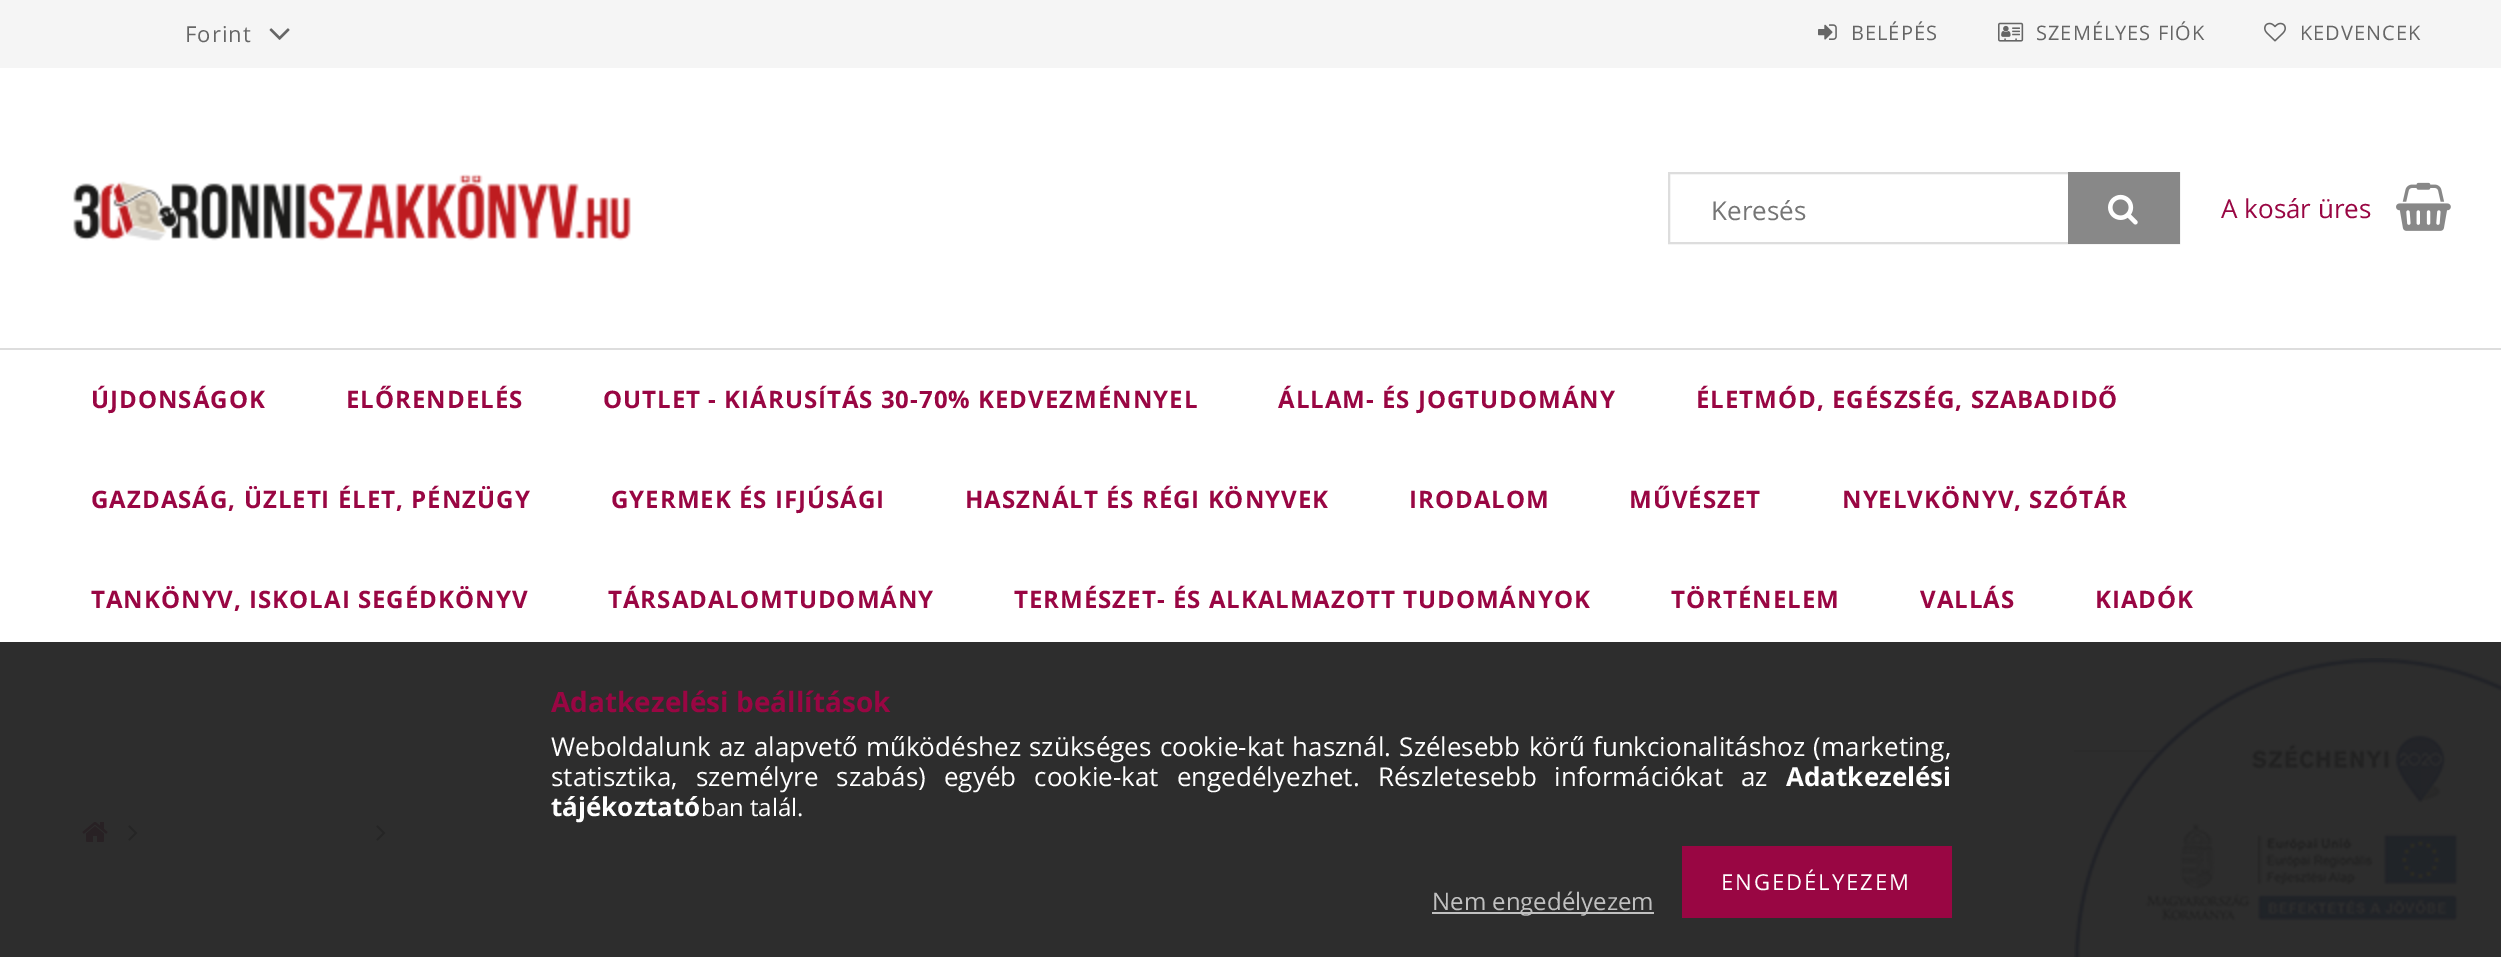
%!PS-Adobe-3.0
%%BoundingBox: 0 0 2501 957
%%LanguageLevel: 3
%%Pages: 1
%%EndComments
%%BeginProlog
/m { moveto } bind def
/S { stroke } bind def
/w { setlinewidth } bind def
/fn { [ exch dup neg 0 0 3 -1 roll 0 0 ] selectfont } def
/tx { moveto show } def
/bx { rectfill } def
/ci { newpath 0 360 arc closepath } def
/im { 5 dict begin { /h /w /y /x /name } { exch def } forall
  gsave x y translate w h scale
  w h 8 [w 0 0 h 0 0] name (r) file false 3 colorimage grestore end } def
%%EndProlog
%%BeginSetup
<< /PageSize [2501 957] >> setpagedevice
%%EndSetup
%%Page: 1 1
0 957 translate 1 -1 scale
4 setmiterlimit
1 setgray
0 0 2501 957 bx
0.176 setgray
0 642 2501 315 bx
0.961 setgray
0 0 2501 68 bx
/OpenSans-Regular 22 fn
0.4 setgray
185 42 m 1 0 (Forint) ashow
(image0.raw) 269 28 21 12 im
(image1.raw) 1818 24 19 16 im
/OpenSans-Regular 20 fn
1851 40 m 1 0 (BELÉPÉS) ashow
(image2.raw) 1998 22 26 20 im
2036 40 m 1 0 (SZEMÉLYES FIÓK) ashow
(image3.raw) 2264 22 22 20 im
2300 40 m 1 0 (KEDVENCEK) ashow
(image4.raw) 73 174 558 67 im
0.867 setgray
2 w
1669 173 510 70 rectstroke
/OpenSans-Regular 26 fn
0.459 setgray
(Keresés) 1711 220 tx
0.533 setgray
2068 172 112 72 bx
(image5.raw) 2108 194 30 31 im
0.6 0.024 0.263 setrgbcolor
(A kosár üres) 2221 218 tx
(image6.raw) 2396 182 55 49 im
0.867 setgray
0 348 2501 2 bx
/OpenSans-Bold 24 fn
0.6 0.024 0.263 setrgbcolor
91 408 m 1 0 (ÚJDONSÁGOK) ashow
346 408 m 1 0 (ELŐRENDELÉS) ashow
603 408 m 1 0 (OUTLET - KIÁRUSÍTÁS 30-70% KEDVEZMÉNNYEL) ashow
1278 408 m 1 0 (ÁLLAM- ÉS JOGTUDOMÁNY) ashow
1696 408 m 1 0 (ÉLETMÓD, EGÉSZSÉG, SZABADIDŐ) ashow
91 508 m 1 0 (GAZDASÁG, ÜZLETI ÉLET, PÉNZÜGY) ashow
611 508 m 1 0 (GYERMEK ÉS IFJÚSÁGI) ashow
965 508 m 1 0 (HASZNÁLT ÉS RÉGI KÖNYVEK) ashow
1409 508 m 1 0 (IRODALOM) ashow
1629 508 m 1 0 (MŰVÉSZET) ashow
1842 508 m 1 0 (NYELVKÖNYV, SZÓTÁR) ashow
91 608 m 1 0 (TANKÖNYV, ISKOLAI SEGÉDKÖNYV) ashow
608 608 m 1 0 (TÁRSADALOMTUDOMÁNY) ashow
1014 608 m 1 0 (TERMÉSZET- ÉS ALKALMAZOTT TUDOMÁNYOK) ashow
1671 608 m 1 0 (TÖRTÉNELEM) ashow
1920 608 m 1 0 (VALLÁS) ashow
2095 608 m 1 0 (KIADÓK) ashow
(image7.raw) 82 822 26 20 im
(image8.raw) 128 825 10 16 im
(image8.raw) 376 825 10 16 im
0.157 0.129 0.141 setrgbcolor
10 w
2132 940 43 ci S
(image9.raw) 2250 955 3 1 im
(image9.raw) 2359 955 3 1 im
/OpenSans-Bold 28 fn
0.6 0.024 0.263 setrgbcolor
(Adatkezelési beállítások) 551 712 tx
/OpenSans-Regular 26 fn
1 setgray
551 756 m 1.5 0 32 (Weboldalunk az alapvető működéshez szükséges cookie-kat használ. Szélesebb körű funkcionalitáshoz \(marketing,) widthshow
551 786 m 11.25 0 32 (statisztika, személyre szabás\) egyéb cookie-kat engedélyezhet. Részletesebb információkat az) widthshow
/OpenSans-Bold 26 fn
(Adatkezelési) 1786 786 tx
(tájékoztató) 551 816 tx
/OpenSans-Regular 24 fn
(ban talál.) 701 816 tx
0.6 0.024 0.263 setrgbcolor
1682 846 270 72 bx
/OpenSans-Regular 22 fn
1 setgray
1721 890 m 2 0 (ENGEDÉLYEZEM) ashow
0.753 setgray
1432 912 222 2 bx
/OpenSans-Regular 24 fn
(Nem engedélyezem) 1432 910 tx
(image10.raw) 2074 658 427 299 im
showpage
%%EOF
